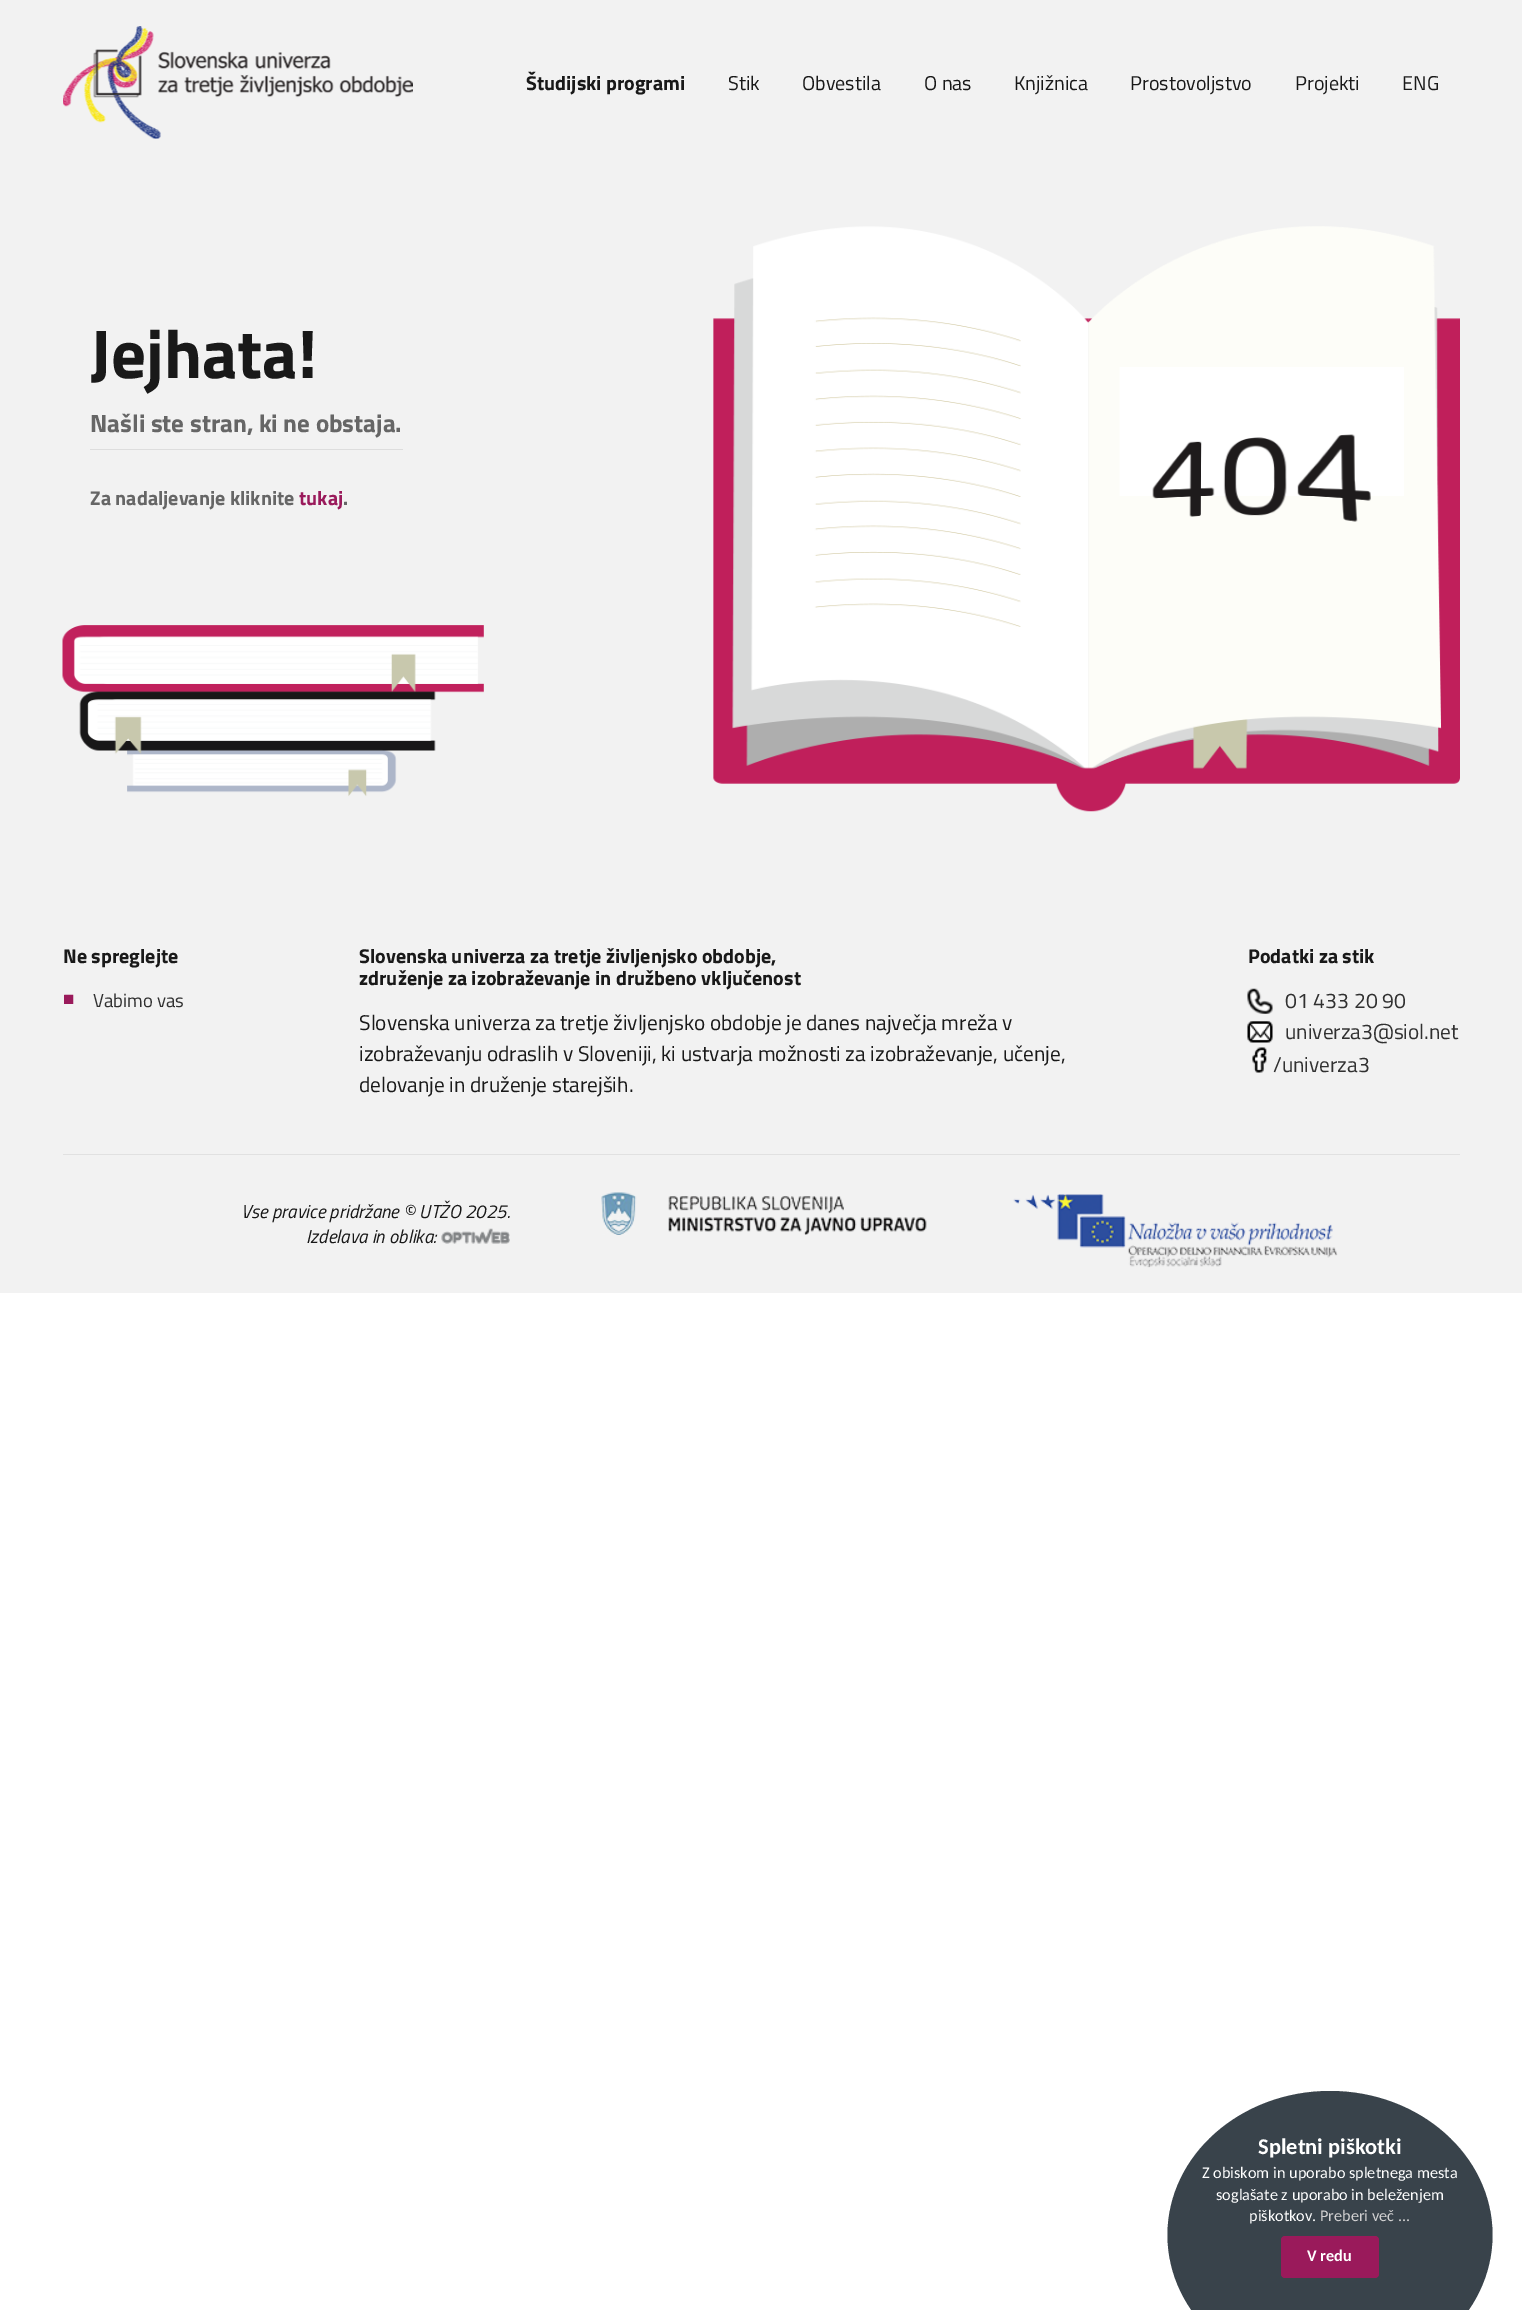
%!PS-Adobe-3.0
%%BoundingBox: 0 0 1522 2310
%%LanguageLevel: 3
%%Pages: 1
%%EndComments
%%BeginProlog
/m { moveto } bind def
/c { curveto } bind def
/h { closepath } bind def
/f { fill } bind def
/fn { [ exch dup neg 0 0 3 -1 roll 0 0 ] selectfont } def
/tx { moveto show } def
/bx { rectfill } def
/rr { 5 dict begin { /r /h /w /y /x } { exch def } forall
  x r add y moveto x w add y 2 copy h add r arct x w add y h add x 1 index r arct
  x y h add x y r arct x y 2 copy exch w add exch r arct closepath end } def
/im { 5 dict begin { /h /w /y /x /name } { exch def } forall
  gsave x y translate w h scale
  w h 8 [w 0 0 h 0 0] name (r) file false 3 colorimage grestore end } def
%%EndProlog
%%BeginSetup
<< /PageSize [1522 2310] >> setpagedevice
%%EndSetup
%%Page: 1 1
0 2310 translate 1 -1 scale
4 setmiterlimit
1 setgray
0 0 1522 2310 bx
0.949 setgray
0 0 1522 1293 bx
(image0.raw) 63 26 350 113 im
/TitilliumWeb-Bold 20 fn
0.098 setgray
(Študijski programi) 526 90 tx
/TitilliumWeb-Regular 20 fn
(Stik) 728 90 tx
(Obvestila) 802 90 tx
(O nas) 924 90 tx
(Knjižnica) 1014 90 tx
(Prostovoljstvo) 1130 90 tx
(Projekti) 1295 90 tx
(ENG) 1402 90 tx
(image1.raw) 62 226 1398 586 im
/TitilliumWeb-Bold 69 fn
(Jejhata!) 90 378 tx
/TitilliumWeb-Bold 25 fn
0.4 setgray
(Našli ste stran, ki ne obstaja.) 90 432 tx
0.867 setgray
90 449 313 1 bx
/TitilliumWeb-Bold 20 fn
0.4 setgray
(Za nadaljevanje kliknite) 90 505 tx
0.604 0.102 0.357 setrgbcolor
(tukaj) 299 505 tx
0.4 setgray
(.) 343 505 tx
0.098 setgray
(Ne spreglejte) 63 963 tx
/LiberationSans-Regular 18.75 fn
0.604 0.102 0.357 setrgbcolor
(■) 63 1005 tx
/TitilliumWeb-Regular 18.75 fn
0.192 setgray
(Vabimo vas) 93 1007 tx
/TitilliumWeb-Bold 20 fn
0.098 setgray
(Slovenska univerza za tretje življenjsko obdobje,) 359 963 tx
(združenje za izobraževanje in družbeno vključenost) 359 985 tx
/TitilliumWeb-Regular 21.25 fn
(Slovenska univerza za tretje življenjsko obdobje je danes največja mreža v) 359 1030 tx
(izobraževanju odraslih v Sloveniji, ki ustvarja možnosti za izobraževanje, učenje,) 359 1061 tx
(delovanje in druženje starejših.) 359 1092 tx
/TitilliumWeb-Bold 20 fn
(Podatki za stik) 1248 963 tx
(image2.raw) 1247 988 26 26 im
/TitilliumWeb-Regular 21.25 fn
0.192 setgray
(01 433 20 90) 1285 1008 tx
(image3.raw) 1247 1021 26 22 im
(univerza3@siol.net) 1285 1039 tx
(image4.raw) 1252 1047 15 26 im
(/univerza3) 1273 1072 tx
0.882 setgray
63 1154 1397 1 bx
/TitilliumWeb-Italic 18.75 fn
0.098 setgray
(Vse pravice pridržane © UTŽO 2025.) 241 1218 tx
(Izdelava in oblika:) 306 1243 tx
(image5.raw) 441 1228 69 16 im
(image6.raw) 601 1192 326 43 im
(image7.raw) 1013 1194 325 74 im
0.224 0.263 0.294 setrgbcolor
1330 2091 m 1419.5 2091 1492.5 2155.5 1492.5 2235 c 1492.5 2314.5 1419.5 2379 1330 2379 c 1240.5 2379 1167.5 2314.5 1167.5 2235 c 1167.5 2155.5 1240.5 2091 1330 2091 c h f
/Carlito-Bold 22.5 fn
1 setgray
(Spletni piškotki) 1258 2154 tx
/Carlito-Regular 16.25 fn
(Z obiskom in uporabo spletnega mesta) 1202 2178 tx
(soglašate z uporabo in beleženjem) 1216 2200 tx
(piškotkov.) 1249 2221 tx
0.827 0.824 0.827 setrgbcolor
(Preberi več ...) 1320 2221 tx
0.604 0.102 0.357 setrgbcolor
1281 2236 98 42 4 rr f
/Carlito-Bold 16.25 fn
1 setgray
(V redu) 1307 2261 tx
showpage
%%EOF
